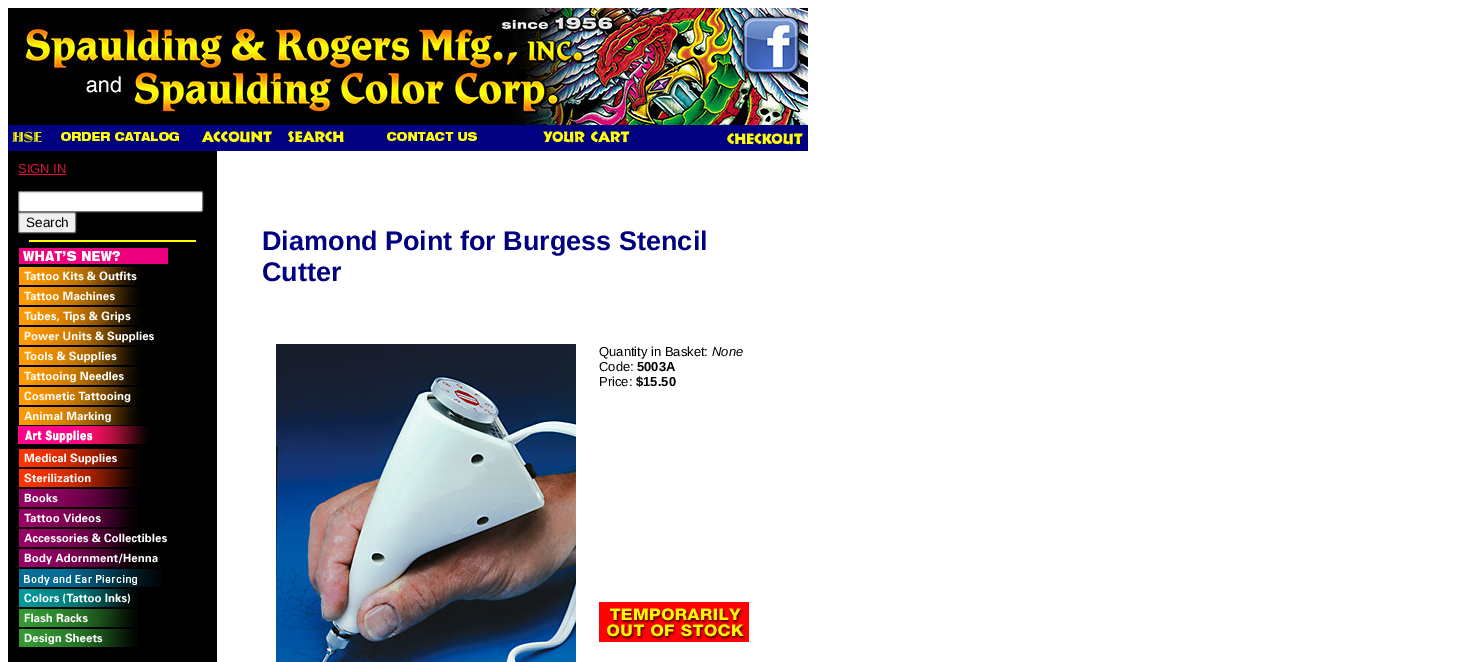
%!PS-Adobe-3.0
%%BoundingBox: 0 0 1459 662
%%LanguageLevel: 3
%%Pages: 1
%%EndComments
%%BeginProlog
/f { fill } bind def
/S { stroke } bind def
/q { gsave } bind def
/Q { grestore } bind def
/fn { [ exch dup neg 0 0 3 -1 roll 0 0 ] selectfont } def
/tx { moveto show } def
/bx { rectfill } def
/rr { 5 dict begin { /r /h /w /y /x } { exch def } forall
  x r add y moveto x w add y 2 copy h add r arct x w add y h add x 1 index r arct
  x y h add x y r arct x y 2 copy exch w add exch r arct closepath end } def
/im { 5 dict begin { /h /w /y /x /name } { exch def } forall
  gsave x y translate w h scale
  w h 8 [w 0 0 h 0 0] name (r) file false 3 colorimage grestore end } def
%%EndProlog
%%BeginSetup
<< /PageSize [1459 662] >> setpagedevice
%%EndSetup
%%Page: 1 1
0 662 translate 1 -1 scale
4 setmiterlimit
1 setgray
0 0 1459 662 bx
(image0.raw) 8 8 720 117 im
(image1.raw) 728 8 80 117 im
0 0 0.502 setrgbcolor
8 125 800 26 bx
(image2.raw) 12 131 30 12 im
(image3.raw) 61 132 118 9 im
(image4.raw) 202 131 70 12 im
(image5.raw) 288 131 56 12 im
(image6.raw) 387 132 90 9 im
(image7.raw) 543 131 87 12 im
(image8.raw) 727 133 76 12 im
0 setgray
8 151 209 511 bx
/LiberationSans-Regular 13 fn
0.863 0.078 0.235 setrgbcolor
(SIGN IN) 18 173 tx
18 174 48 1 bx
1 setgray
18.5 191.5 184 20 1.5 rr q f Q
0.463 setgray
S
0.937 setgray
18.5 212.5 57 20 1.5 rr q f Q
0.463 setgray
S
/LiberationSans-Regular 13.5 fn
0 setgray
(Search) 26 227 tx
1 1 0 setrgbcolor
29 240 167 2 bx
(image9.raw) 18 248 150 16 im
(image10.raw) 18 266 123 20 im
(image11.raw) 18 286 123 20 im
(image12.raw) 18 306 123 20 im
(image13.raw) 18 326 136 20 im
(image14.raw) 18 346 123 20 im
(image15.raw) 18 366 123 20 im
(image16.raw) 18 386 123 20 im
(image17.raw) 18 406 123 20 im
(image18.raw) 18 426 130 18 im
(image19.raw) 18 448 124 20 im
(image20.raw) 18 468 124 20 im
(image21.raw) 18 488 120 20 im
(image22.raw) 18 508 120 20 im
(image23.raw) 18 528 149 20 im
(image24.raw) 18 548 142 20 im
(image25.raw) 18 568 144 20 im
(image26.raw) 18 588 120 20 im
(image27.raw) 18 608 120 20 im
(image28.raw) 18 628 120 20 im
/LiberationSans-Bold 27 fn
0 0 0.502 setrgbcolor
(Diamond Point for Burgess Stencil) 262 250 tx
(Cutter) 262 281 tx
(image29.raw) 276 344 300 318 im
/LiberationSans-Regular 13 fn
0 setgray
(Quantity in Basket:) 599 356 tx
/LiberationSans-Italic 13 fn
(None) 712 356 tx
/LiberationSans-Regular 13 fn
(Code:) 599 371 tx
/LiberationSans-Bold 13 fn
(5003A) 637 371 tx
/LiberationSans-Regular 13 fn
(Price:) 599 386 tx
/LiberationSans-Bold 13 fn
($15.50) 636 386 tx
(image30.raw) 599 602 150 40 im
showpage
%%EOF
